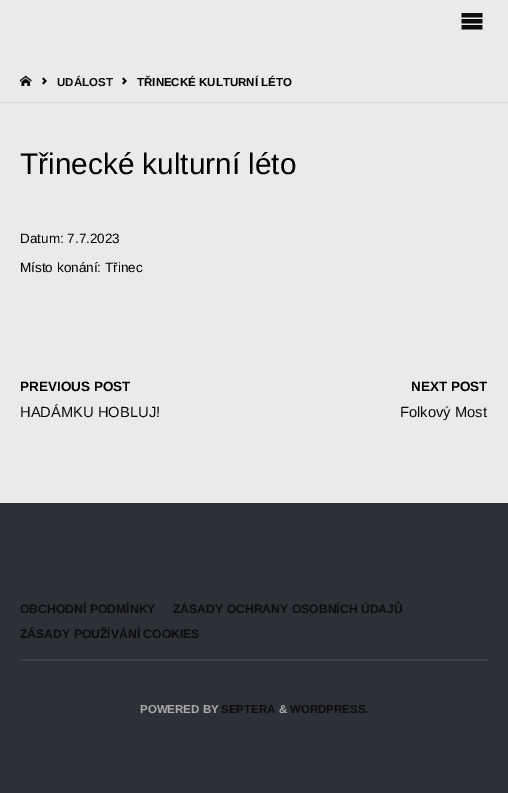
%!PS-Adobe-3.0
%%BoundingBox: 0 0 508 793
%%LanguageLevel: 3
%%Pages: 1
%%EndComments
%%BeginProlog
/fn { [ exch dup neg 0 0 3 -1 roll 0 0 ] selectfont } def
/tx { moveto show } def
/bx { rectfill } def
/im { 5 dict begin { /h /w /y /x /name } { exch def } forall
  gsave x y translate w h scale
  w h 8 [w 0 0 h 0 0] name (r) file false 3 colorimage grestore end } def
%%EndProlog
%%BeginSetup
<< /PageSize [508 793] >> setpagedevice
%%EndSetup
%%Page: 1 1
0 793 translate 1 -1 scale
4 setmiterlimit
0.918 setgray
0 0 508 793 bx
(image0.raw) 461 13 22 17 im
0.851 setgray
0 102 508 1 bx
(image1.raw) 20 75 12 11 im
(image2.raw) 42 77 5 8 im
/LiberationSans-Bold 11.5 fn
0.047 setgray
(UDÁLOST) 57 86 tx
(image2.raw) 122 77 5 8 im
0 setgray
(TŘINECKÉ KULTURNÍ LÉTO) 137 86 tx
/LiberationSans-Regular 29.75 fn
(Třinecké kulturní léto) 20 174 tx
/LiberationSans-Regular 13.5 fn
(Datum: 7.7.2023) 20 243 tx
(Místo konání: Třinec) 20 272 tx
/LiberationSans-Bold 13.5 fn
(PREVIOUS POST) 20 391 tx
/LiberationSans-Regular 14.75 fn
0.047 setgray
(HADÁMKU HOBLUJ!) 20 417 tx
/LiberationSans-Bold 13.5 fn
0 setgray
(NEXT POST) 411 391 tx
/LiberationSans-Regular 14.75 fn
0.047 setgray
(Folkový Most) 400 417 tx
0.18 0.188 0.22 setrgbcolor
0 503 508 290 bx
/LiberationSans-Bold 12.2 fn
0.047 setgray
(OBCHODNÍ PODMÍNKY) 20 613 tx
(ZÁSADY OCHRANY OSOBNÍCH ÚDAJŮ) 173 613 tx
(ZÁSADY POUŽÍVÁNÍ COOKIES) 20 638 tx
0.239 0.247 0.278 setrgbcolor
20 659 468 2 bx
/LiberationSans-Bold 11.5 fn
0.667 setgray
(POWERED BY) 140 713 tx
0.047 setgray
(SEPTERA) 221 713 tx
0.667 setgray
(&) 279 713 tx
0.047 setgray
(WORDPRESS.) 290 713 tx
showpage
%%EOF
